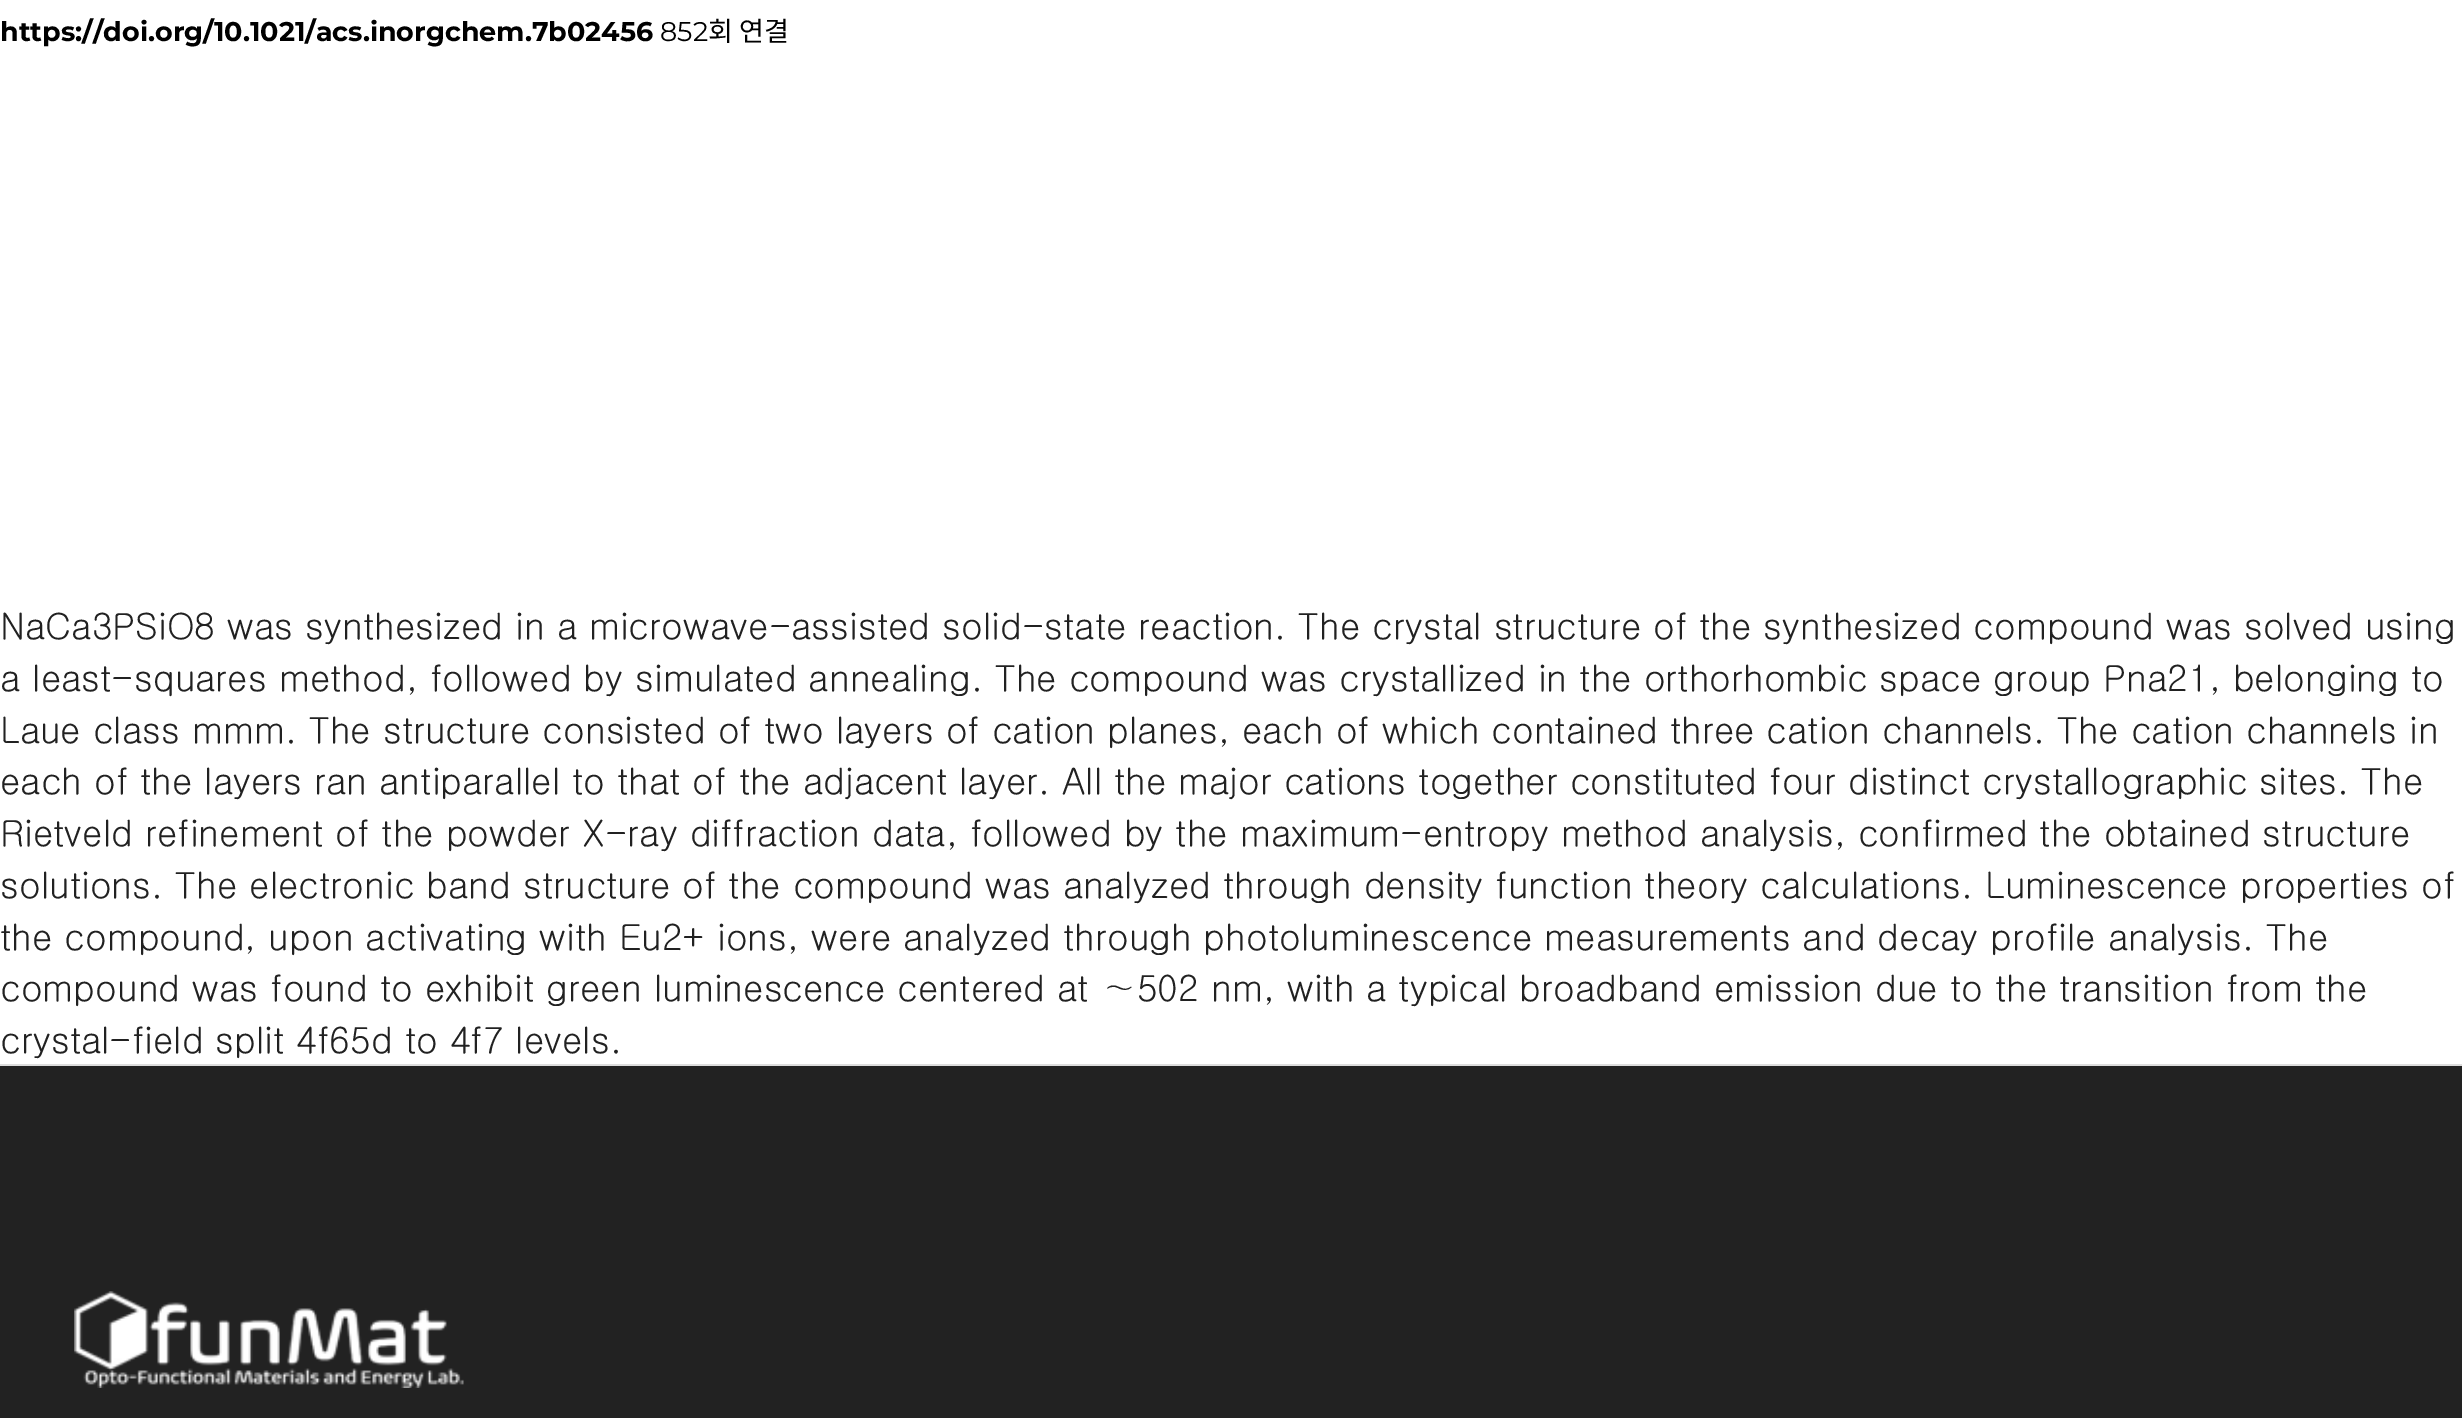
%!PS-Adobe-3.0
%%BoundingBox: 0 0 2462 1418
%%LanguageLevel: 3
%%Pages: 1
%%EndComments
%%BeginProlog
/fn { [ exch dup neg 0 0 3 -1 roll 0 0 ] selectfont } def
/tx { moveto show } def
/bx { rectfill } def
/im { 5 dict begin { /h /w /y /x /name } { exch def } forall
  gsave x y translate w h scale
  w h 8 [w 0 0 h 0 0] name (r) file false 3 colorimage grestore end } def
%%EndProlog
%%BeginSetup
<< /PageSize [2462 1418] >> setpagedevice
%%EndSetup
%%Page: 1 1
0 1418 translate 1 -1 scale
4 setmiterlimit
1 setgray
0 0 2462 1418 bx
/Montserrat-Bold 27 fn
0 setgray
(https://doi.org/10.1021/acs.inorgchem.7b02456) 0 41 tx
/Montserrat-Regular 27 fn
(852) 660 41 tx
/NotoSansKR-Regular 27 fn
(회 연결) 708 41 tx
/Gulim-Regular 36 fn
0.129 setgray
(NaCa3PSiO8 was synthesized in a microwave-assisted solid-state reaction. The crystal structure of the synthesized compound was solved using) 0 639 tx
(a least-squares method, followed by simulated annealing. The compound was crystallized in the orthorhombic space group Pna21, belonging to) 0 691 tx
(Laue class mmm. The structure consisted of two layers of cation planes, each of which contained three cation channels. The cation channels in) 0 743 tx
(each of the layers ran antiparallel to that of the adjacent layer. All the major cations together constituted four distinct crystallographic sites. The) 0 794 tx
(Rietveld refinement of the powder X-ray diffraction data, followed by the maximum-entropy method analysis, confirmed the obtained structure) 0 846 tx
(solutions. The electronic band structure of the compound was analyzed through density function theory calculations. Luminescence properties of) 0 898 tx
(the compound, upon activating with Eu2+ ions, were analyzed through photoluminescence measurements and decay profile analysis. The) 0 950 tx
(compound was found to exhibit green luminescence centered at ∼502 nm, with a typical broadband emission due to the transition from the) 0 1001 tx
(crystal-field split 4f65d to 4f7 levels.) 0 1053 tx
0.133 setgray
0 1066 2462 352 bx
0.867 setgray
0 1064 2462 2 bx
(image0.raw) 74 1291 390 97 im
showpage
%%EOF
